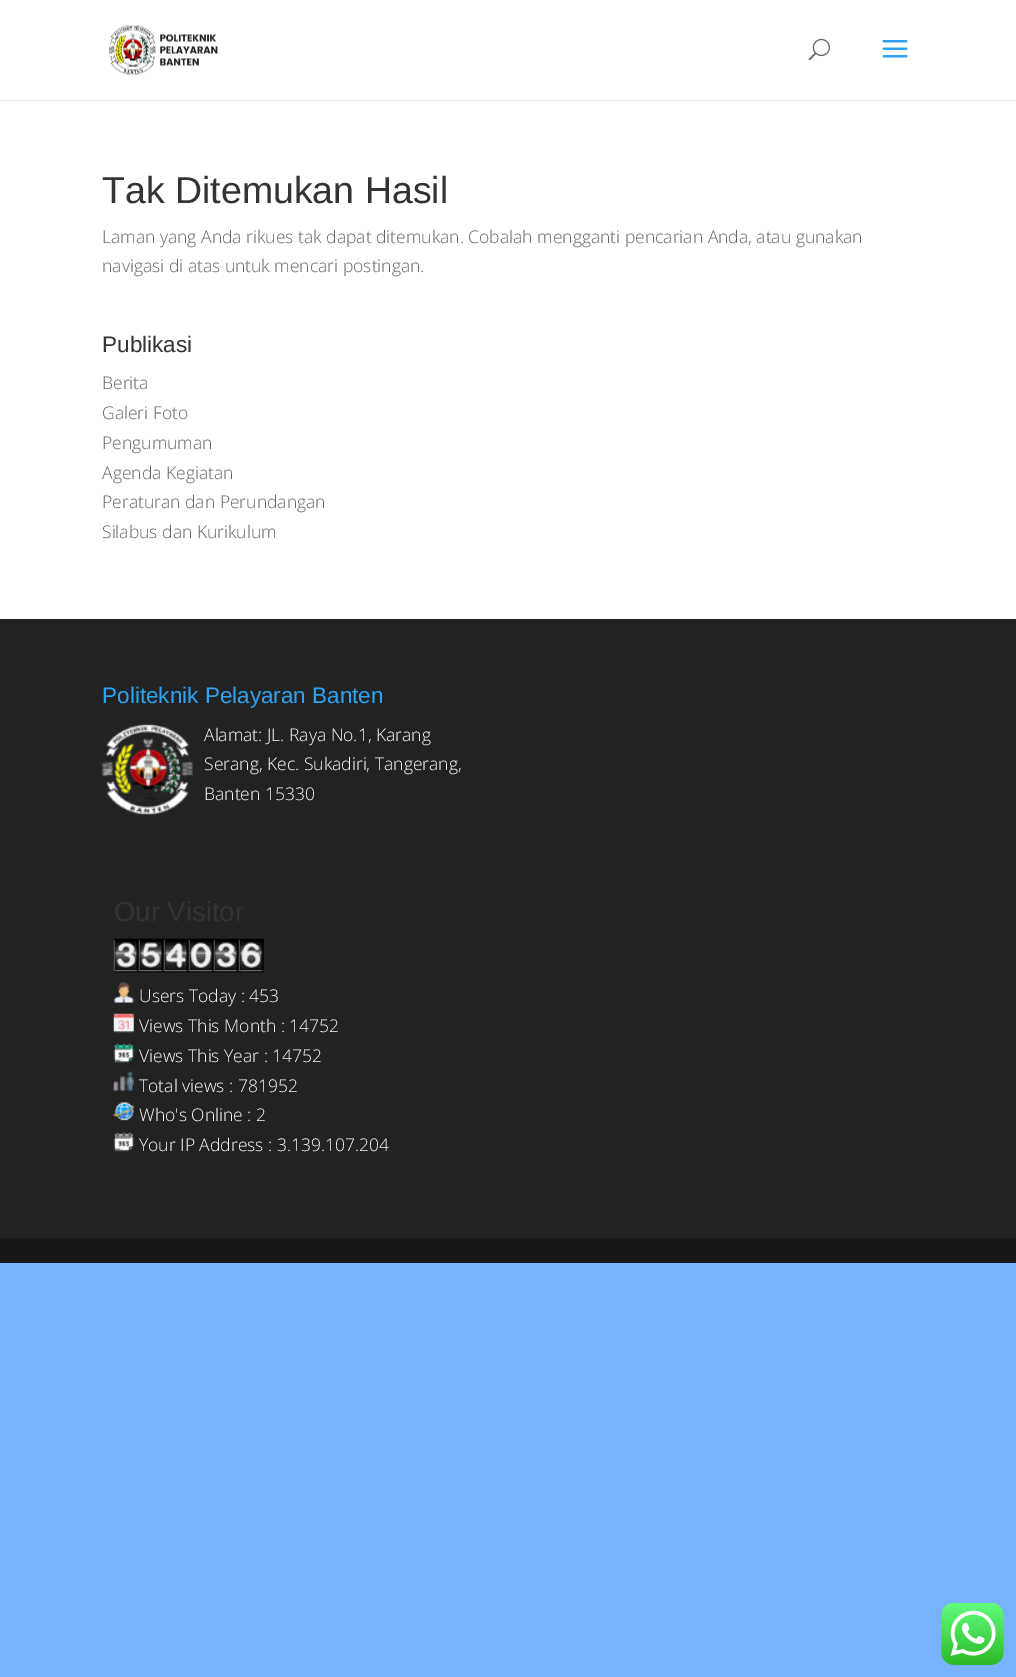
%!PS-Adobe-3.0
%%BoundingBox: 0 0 1016 1677
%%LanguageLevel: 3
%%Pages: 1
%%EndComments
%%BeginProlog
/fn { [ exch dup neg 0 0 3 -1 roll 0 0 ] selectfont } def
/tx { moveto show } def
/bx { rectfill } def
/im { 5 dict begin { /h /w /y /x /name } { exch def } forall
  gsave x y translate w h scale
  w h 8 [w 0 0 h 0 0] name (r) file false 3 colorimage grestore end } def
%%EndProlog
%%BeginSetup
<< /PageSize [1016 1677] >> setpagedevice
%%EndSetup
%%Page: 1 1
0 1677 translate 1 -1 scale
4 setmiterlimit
0.467 0.698 1 setrgbcolor
0 0 1016 1677 bx
0.902 setgray
0 100 1016 1 bx
1 setgray
0 0 1016 100 bx
(image0.raw) 109 25 109 50 im
(image1.raw) 808 38 22 23 im
(image2.raw) 882 40 26 18 im
0 101 1016 518 bx
/LiberationSans-Regular 37.5 fn
0.2 setgray
(Tak Ditemukan Hasil) 102 203 tx
/OpenSans-Light 17.5 fn
0.4 setgray
(Laman yang Anda rikues tak dapat ditemukan. Cobalah mengganti pencarian Anda, atau gunakan) 102 243 tx
(navigasi di atas untuk mencari postingan.) 102 272 tx
/LiberationSans-Regular 22.5 fn
0.2 setgray
(Publikasi) 102 352 tx
/OpenSans-Light 17.5 fn
0.4 setgray
(Berita) 102 389 tx
(Galeri Foto) 102 419 tx
(Pengumuman) 102 449 tx
(Agenda Kegiatan) 102 479 tx
(Peraturan dan Perundangan) 102 508 tx
(Silabus dan Kurikulum) 102 538 tx
0.133 setgray
0 619 1016 619 bx
/LiberationSans-Regular 22.5 fn
0.18 0.639 0.949 setrgbcolor
(Politeknik Pelayaran Banten) 102 703 tx
(image3.raw) 101 723 92 92 im
/OpenSans-Light 17.5 fn
1 setgray
(Alamat: JL. Raya No.1, Karang) 204 741 tx
(Serang, Kec. Sukadiri, Tangerang,) 204 770 tx
(Banten 15330) 204 800 tx
/LiberationSans-Regular 27.5 fn
0.2 setgray
(Our Visitor) 114 921 tx
(image4.raw) 113 938 26 35 im
(image5.raw) 138 938 26 35 im
(image6.raw) 163 938 26 35 im
(image7.raw) 188 938 26 35 im
(image8.raw) 213 938 26 35 im
(image9.raw) 238 938 26 35 im
(image10.raw) 113 982 21 21 im
/OpenSans-Light 17.5 fn
1 setgray
(Users Today : 453) 139 1002 tx
(image11.raw) 113 1013 21 20 im
(Views This Month : 14752) 139 1032 tx
(image12.raw) 113 1043 21 20 im
(Views This Year : 14752) 139 1062 tx
(image13.raw) 113 1071 21 21 im
(Total views : 781952) 139 1092 tx
(image14.raw) 113 1102 21 19 im
(Who's Online : 2) 139 1121 tx
(image15.raw) 113 1131 21 21 im
(Your IP Address : 3.139.107.204) 139 1151 tx
0.09 setgray
0 1238 1016 25 bx
(image16.raw) 941 1603 63 62 im
showpage
%%EOF
